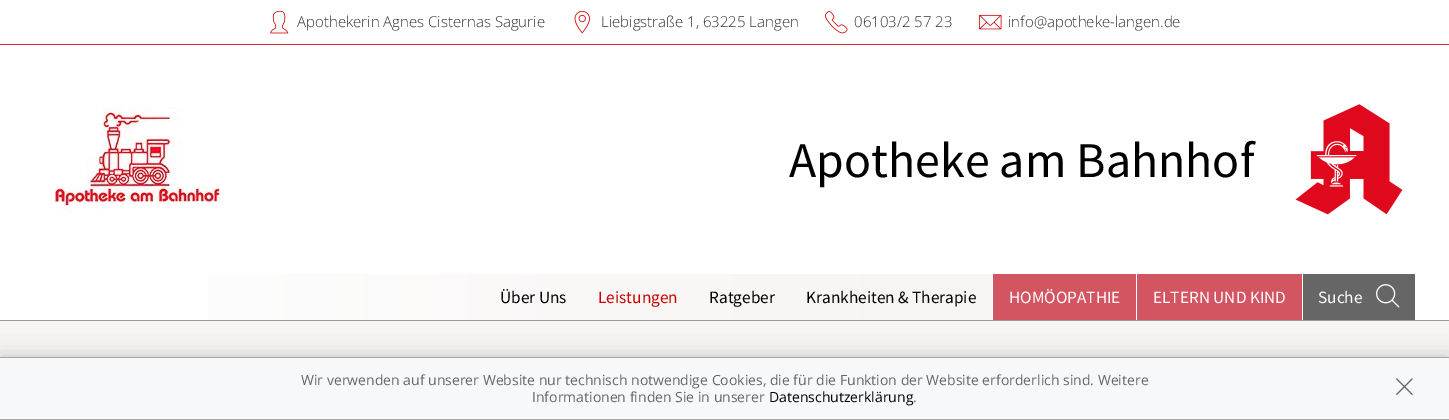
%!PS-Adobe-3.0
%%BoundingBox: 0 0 1449 420
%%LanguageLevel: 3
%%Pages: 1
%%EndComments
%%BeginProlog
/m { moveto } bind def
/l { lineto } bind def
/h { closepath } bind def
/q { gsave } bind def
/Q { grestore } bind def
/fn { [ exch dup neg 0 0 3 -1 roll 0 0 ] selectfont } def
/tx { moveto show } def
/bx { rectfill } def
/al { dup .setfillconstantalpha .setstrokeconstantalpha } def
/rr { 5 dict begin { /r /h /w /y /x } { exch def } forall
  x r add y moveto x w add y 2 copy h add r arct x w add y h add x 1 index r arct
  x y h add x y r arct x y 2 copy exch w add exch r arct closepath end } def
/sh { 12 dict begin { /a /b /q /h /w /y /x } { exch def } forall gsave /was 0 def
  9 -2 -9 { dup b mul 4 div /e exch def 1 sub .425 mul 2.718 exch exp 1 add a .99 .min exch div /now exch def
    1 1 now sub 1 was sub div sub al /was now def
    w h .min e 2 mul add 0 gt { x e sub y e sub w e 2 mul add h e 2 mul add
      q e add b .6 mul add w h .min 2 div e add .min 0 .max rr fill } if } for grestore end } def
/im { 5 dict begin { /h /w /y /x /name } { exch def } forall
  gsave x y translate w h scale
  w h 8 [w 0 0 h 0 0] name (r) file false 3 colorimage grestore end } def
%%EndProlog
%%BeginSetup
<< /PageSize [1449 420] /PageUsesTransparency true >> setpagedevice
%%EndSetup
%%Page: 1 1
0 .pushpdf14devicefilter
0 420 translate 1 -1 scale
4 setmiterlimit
1 setgray
0 0 1449 420 bx
0.784 0.188 0.247 setrgbcolor
0 44 1449 1 bx
(image0.raw) 270 10 19 24 im
/OpenSans-Light 15 fn
0.2 setgray
(Apothekerin Agnes Cisternas Sagurie) 297 27 tx
(image1.raw) 574 10 16 24 im
(Liebigstraße 1, 63225 Langen) 601 27 tx
(image2.raw) 825 11 23 23 im
(06103/2 57 23) 854 27 tx
(image3.raw) 979 14 23 16 im
(info@apotheke-langen.de) 1008 27 tx
(image4.raw) 55 107 165 105 im
(image5.raw) 1295 104 108 111 im
/SourceSansPro-Regular 50 fn
0 setgray
(Apotheke am Bahnhof) 789 177 tx
q 208 274 m 992 274 l 992 320 l 208 320 l h clip newpath
<< /ShadingType 2 /ColorSpace /DeviceRGB /Coords [35 297 1415 297] /Extend [true true] /Function << /FunctionType 2 /Domain [0 1] /C0 [1 1 1] /C1 [0.953 0.937 0.922] /N 1 >> >> shfill Q
/SourceSansPro-Regular 17.25 fn
(Über Uns) 500 303 tx
0.8 0 0 setrgbcolor
(Leistungen) 598 303 tx
0 setgray
(Ratgeber) 709 303 tx
(Krankheiten & Therapie) 806 303 tx
0.824 0.333 0.38 setrgbcolor
993 274 143 46 bx
1 setgray
(HOMÖOPATHIE) 1009 303 tx
0.824 0.333 0.38 setrgbcolor
1137 274 165 46 bx
1 setgray
(ELTERN UND KIND) 1153 303 tx
0.4 setgray
1303 274 112 46 bx
1 setgray
(Suche) 1318 303 tx
(image6.raw) 1376 284 24 24 im
0.973 0.957 0.957 setrgbcolor
0 321 1449 36 bx
0.6 setgray
0 320 1449 1 bx
0 setgray
0 357 1449 63 0 10 0.2 sh
0.969 0.973 0.976 setrgbcolor
0 358 1449 61 bx
0.663 setgray
0 357 1449 1 bx
0 419 1449 1 bx
/OpenSans-Regular 14 fn
0.4 setgray
(Wir verwenden auf unserer Website nur technisch notwendige Cookies, die für die Funktion der Website erforderlich sind. Weitere) 301 385 tx
(Informationen finden Sie in unserer) 532 402 tx
0 setgray
(Datenschutzerklärung) 769 402 tx
0.4 setgray
(.) 913 402 tx
(image7.raw) 1396 378 17 17 im
.poppdf14devicefilter showpage
%%EOF
